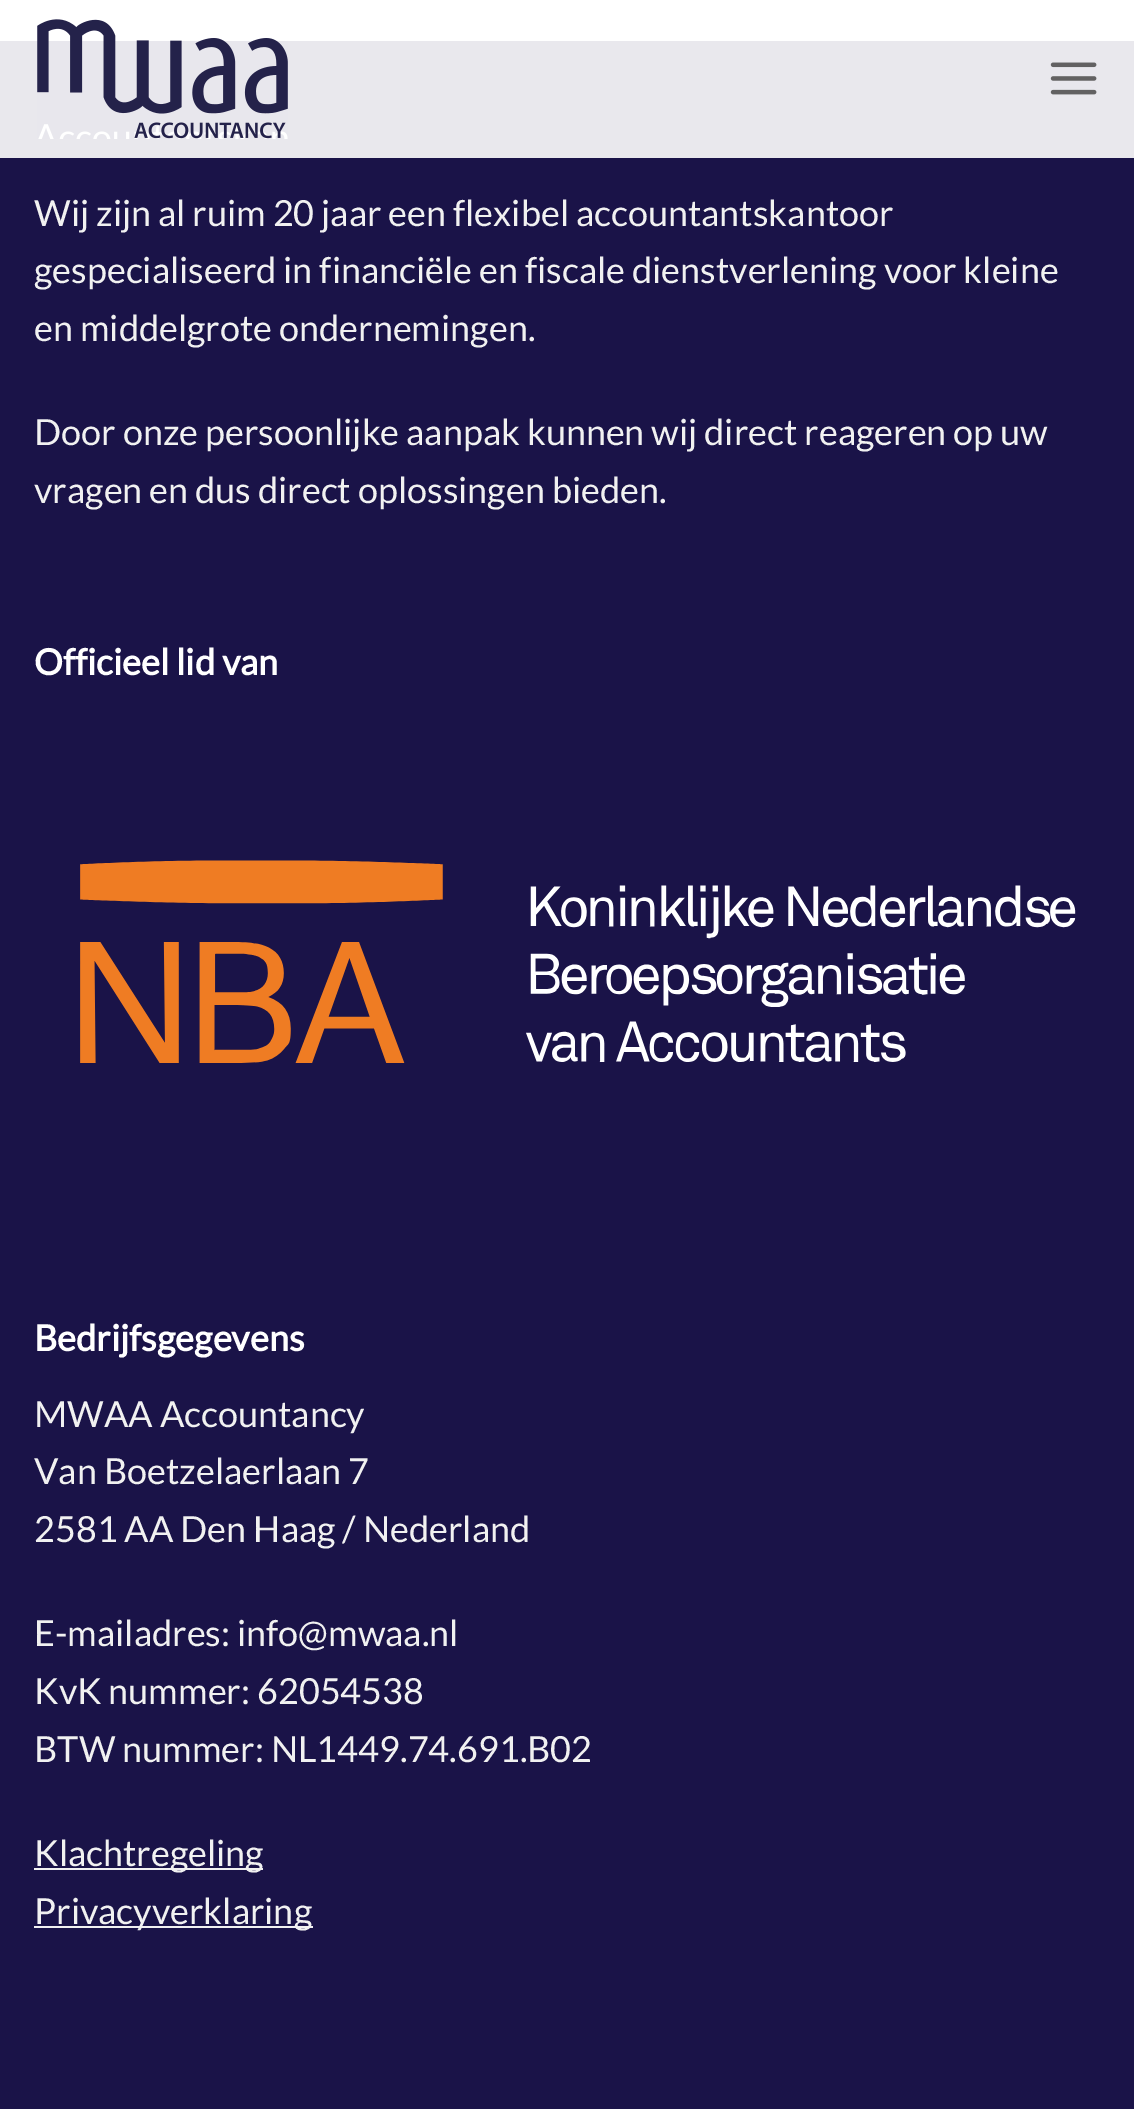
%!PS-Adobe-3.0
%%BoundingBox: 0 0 1134 2109
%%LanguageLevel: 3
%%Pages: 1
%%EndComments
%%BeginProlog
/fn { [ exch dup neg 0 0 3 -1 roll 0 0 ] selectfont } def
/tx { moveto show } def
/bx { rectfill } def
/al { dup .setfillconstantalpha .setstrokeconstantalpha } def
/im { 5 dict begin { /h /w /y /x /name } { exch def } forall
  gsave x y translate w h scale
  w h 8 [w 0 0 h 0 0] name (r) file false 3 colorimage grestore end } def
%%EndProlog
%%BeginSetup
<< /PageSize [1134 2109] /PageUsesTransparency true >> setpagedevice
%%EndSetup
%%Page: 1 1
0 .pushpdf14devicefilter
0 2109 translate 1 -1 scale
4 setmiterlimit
1 setgray
0 0 1134 2109 bx
0.102 0.075 0.282 setrgbcolor
0 41 1134 2068 bx
0.9 al
1 setgray
0 41 1134 117 bx
1 al
(image0.raw) 37 19 251 120 im
(image1.raw) 1050 62 47 33 im
/Lato-Regular 36 fn
0.945 setgray
(Wij zijn al ruim 20 jaar een flexibel accountantskantoor) 34 226 tx
(gespecialiseerd in financiële en fiscale dienstverlening voor kleine) 34 283 tx
(en middelgrote ondernemingen.) 34 341 tx
(Door onze persoonlijke aanpak kunnen wij direct reageren op uw) 34 445 tx
(vragen en dus direct oplossingen bieden.) 34 503 tx
/Lato-Bold 36 fn
1 setgray
(Officieel lid van) 34 675 tx
(image2.raw) 80 860 996 203 im
(Bedrijfsgegevens) 34 1351 tx
/Lato-Regular 36 fn
0.945 setgray
(MWAA Accountancy) 34 1427 tx
(Van Boetzelaerlaan 7) 34 1484 tx
(2581 AA Den Haag / Nederland) 34 1542 tx
(E-mailadres: info@mwaa.nl) 34 1646 tx
(KvK nummer: 62054538) 34 1704 tx
(BTW nummer: NL1449.74.691.B02) 34 1762 tx
34 1868 229 2 bx
(Klachtregeling) 34 1866 tx
34 1926 279 2 bx
(Privacyverklaring) 34 1924 tx
.poppdf14devicefilter showpage
%%EOF
